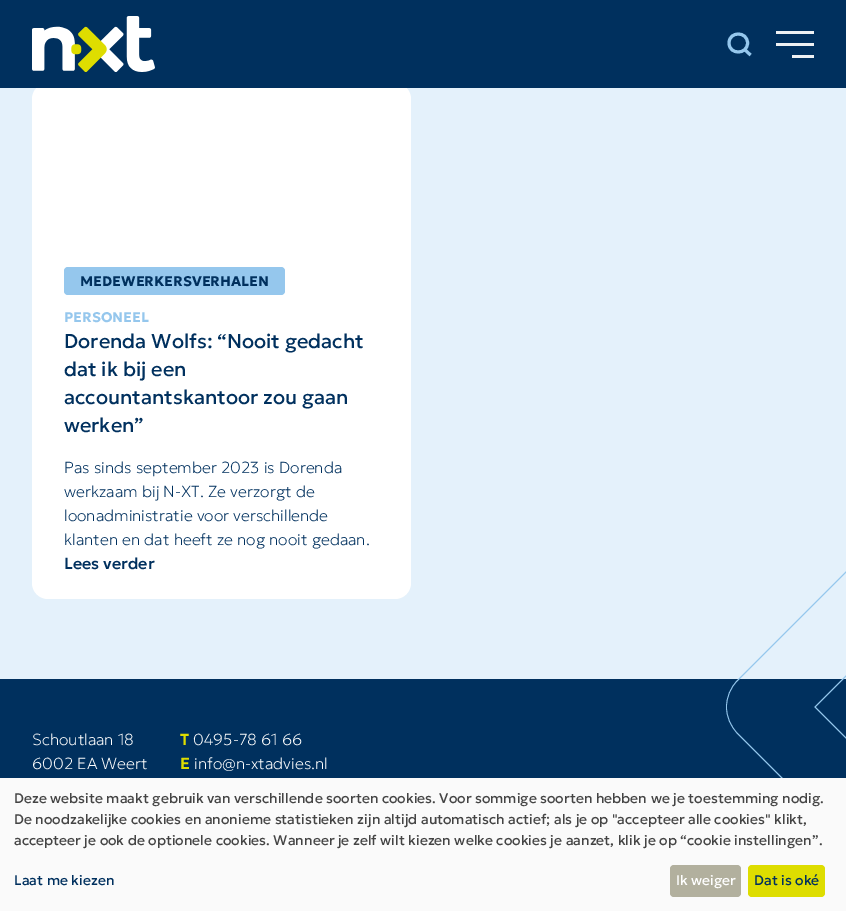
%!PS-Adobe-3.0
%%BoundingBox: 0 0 846 911
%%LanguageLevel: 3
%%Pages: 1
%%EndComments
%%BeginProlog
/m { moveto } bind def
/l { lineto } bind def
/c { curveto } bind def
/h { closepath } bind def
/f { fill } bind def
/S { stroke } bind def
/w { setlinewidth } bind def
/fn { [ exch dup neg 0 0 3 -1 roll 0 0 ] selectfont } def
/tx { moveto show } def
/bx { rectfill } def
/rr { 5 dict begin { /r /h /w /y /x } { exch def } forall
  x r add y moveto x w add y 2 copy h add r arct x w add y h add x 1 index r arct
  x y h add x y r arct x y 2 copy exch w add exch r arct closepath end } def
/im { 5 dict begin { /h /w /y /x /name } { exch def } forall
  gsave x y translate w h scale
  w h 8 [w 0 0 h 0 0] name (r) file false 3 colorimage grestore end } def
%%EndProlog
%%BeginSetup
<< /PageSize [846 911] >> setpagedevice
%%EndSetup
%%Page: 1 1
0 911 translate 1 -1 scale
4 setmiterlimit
0.894 0.945 0.984 setrgbcolor
0 0 846 911 bx
1 setgray
32 83 379 516 16 rr f
0 0.188 0.369 setrgbcolor
0 0 846 88 bx
(image0.raw) 32 16 123 56 im
0.584 0.78 0.929 setrgbcolor
3 w
1 setlinejoin
744.5 49.5 m 750.5 55 l 747.5 43 m 747.5 55 729 55 729 43 c 729 31 747.5 31 747.5 43 c h S
0.933 0.945 0.957 setrgbcolor
776 31 38 3 bx
776 43 38 3 bx
792 55 22 3 bx
0.584 0.78 0.929 setrgbcolor
64 267 221 28 4 rr f
/Geologica-Bold 14 fn
0 0.188 0.369 setrgbcolor
(MEDEWERKERSVERHALEN) 80 286 tx
0.584 0.78 0.929 setrgbcolor
(PERSONEEL) 64 322 tx
/Geologica-Regular 20 fn
0 0.188 0.369 setrgbcolor
(Dorenda Wolfs: “Nooit gedacht) 64 348 tx
(dat ik bij een) 64 376 tx
(accountantskantoor zou gaan) 64 404 tx
(werken”) 64 432 tx
/Geologica-Thin 16 fn
(Pas sinds september 2023 is Dorenda) 64 473 tx
(werkzaam bij N-XT. Ze verzorgt de) 64 497 tx
(loonadministratie voor verschillende) 64 521 tx
(klanten en dat heeft ze nog nooit gedaan.) 64 545 tx
/Geologica-Medium 16 fn
(Lees verder) 64 569 tx
0 679 846 99 bx
/Geologica-Thin 16 fn
1 setgray
(Schoutlaan 18) 32 745 tx
(6002 EA Weert) 32 769 tx
/Geologica-SemiBold 16 fn
0.871 0.867 0 setrgbcolor
(T) 180 745 tx
/Geologica-Thin 16 fn
1 setgray
(0495-78 61 66) 193 745 tx
/Geologica-SemiBold 16 fn
0.871 0.867 0 setrgbcolor
(E) 180 769 tx
/Geologica-Thin 16 fn
1 setgray
(info@n-xtadvies.nl) 194 769 tx
0.584 0.78 0.929 setrgbcolor
0.8 w
0 setlinejoin
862.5 843 m 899 806.5 l 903 802.5 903 795.5 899 791 c 815 707 l 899 623 l 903 618.5 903 611.5 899 607 c 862.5 571 l 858.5 566.5 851.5 566.5 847 571 c 737.5 680.5 l 730.5 687.5 726.5 697 726.5 707 c 726.5 717 730.5 726 737.5 733.5 c 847 843 l 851.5 847 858.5 847 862.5 843 c h S
0.98 setgray
0 778 846 133 bx
/Geologica-Regular 14 fn
0.267 setgray
(Deze website maakt gebruik van verschillende soorten cookies. Voor sommige soorten hebben we je toestemming nodig.) 14 803 tx
(De noodzakelijke cookies en anonieme statistieken zijn altijd automatisch actief; als je op "accepteer alle cookies" klikt,) 14 824 tx
(accepteer je ook de optionele cookies. Wanneer je zelf wilt kiezen welke cookies je aanzet, klik je op “cookie instellingen”.) 14 845 tx
0 0.188 0.369 setrgbcolor
(Laat me kiezen) 14 885 tx
0.698 0.69 0.62 setrgbcolor
670 865 71 32 4 rr f
1 setgray
(Ik weiger) 676 885 tx
0.871 0.867 0 setrgbcolor
748 865 77 32 4 rr f
0 0.188 0.369 setrgbcolor
(Dat is oké) 754 885 tx
showpage
%%EOF
